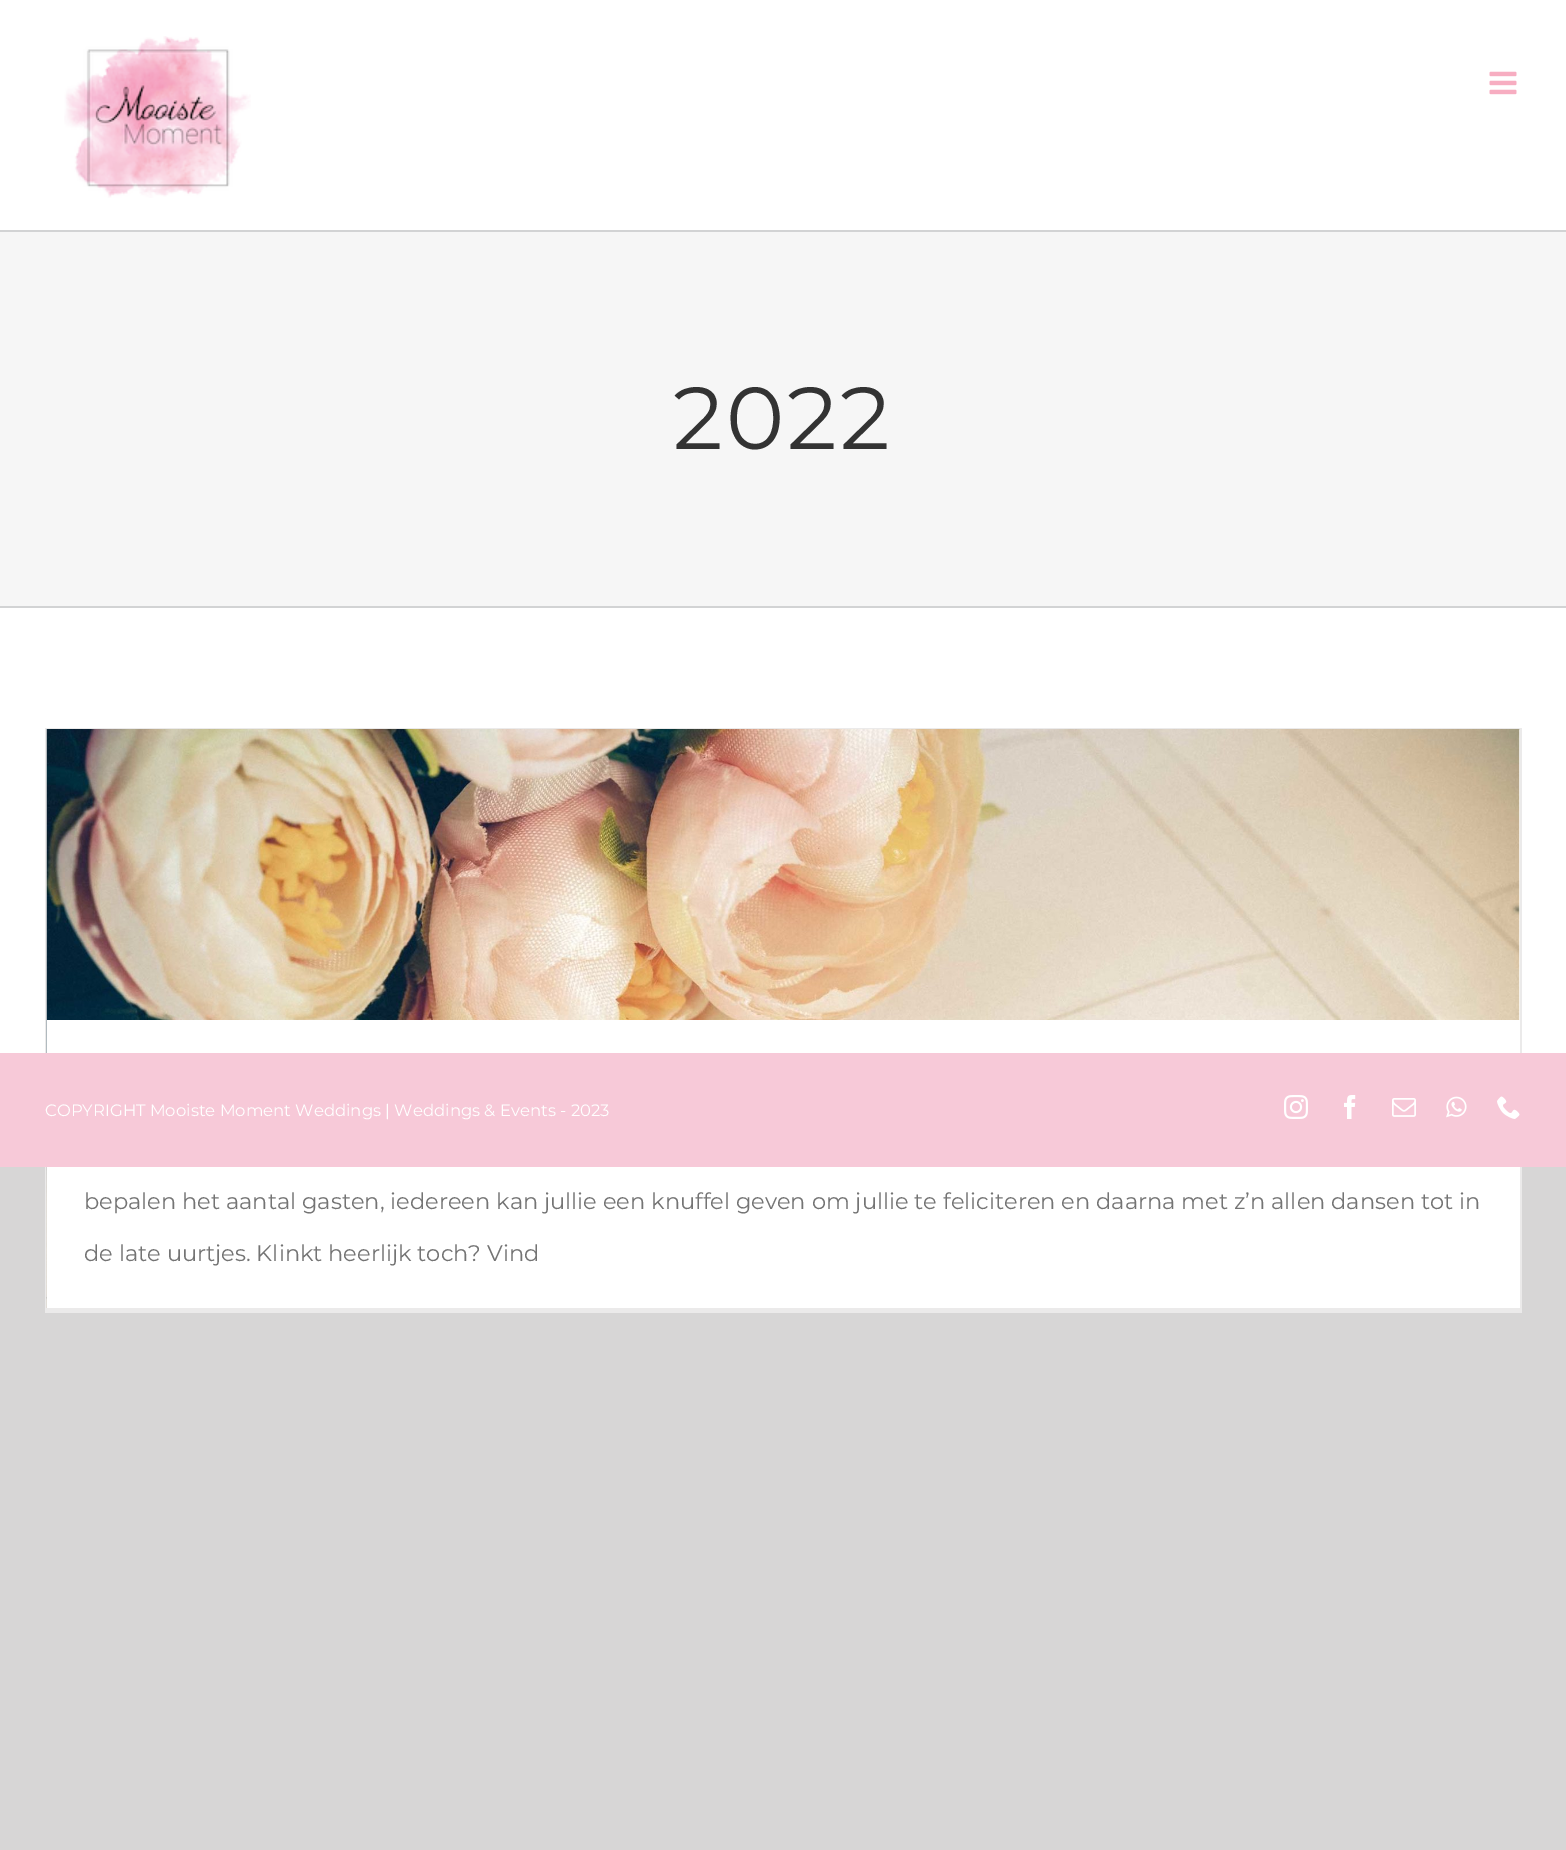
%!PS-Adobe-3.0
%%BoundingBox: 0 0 1566 1850
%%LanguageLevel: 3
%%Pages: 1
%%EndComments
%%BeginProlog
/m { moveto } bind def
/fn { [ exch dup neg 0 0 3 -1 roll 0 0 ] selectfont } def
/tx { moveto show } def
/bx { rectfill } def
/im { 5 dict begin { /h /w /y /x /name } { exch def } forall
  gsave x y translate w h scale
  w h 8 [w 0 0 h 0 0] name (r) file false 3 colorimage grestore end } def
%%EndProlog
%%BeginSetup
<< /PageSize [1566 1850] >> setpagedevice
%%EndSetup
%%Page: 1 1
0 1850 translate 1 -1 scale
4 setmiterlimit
0.843 0.839 0.839 setrgbcolor
0 0 1566 1850 bx
1 setgray
0 0 1566 1053 bx
(image0.raw) 64 36 187 162 im
(image1.raw) 1489 71 28 24 im
0.965 setgray
0 232 1566 374 bx
0.824 0.827 0.831 setrgbcolor
0 230 1566 2 bx
0 606 1566 2 bx
/Montserrat-Regular 88 fn
0.2 setgray
673 449 m 3 0 (2022) ashow
0.922 0.918 0.918 setrgbcolor
45 728 1476 2 bx
1520 728 2 585 bx
45 1308 1476 5 bx
45 728 2 585 bx
(image7.raw) 46 729 1474 579 im
1 setgray
47 1020 1473 288 bx
0.969 0.788 0.847 setrgbcolor
0 1053 1566 114 bx
/Montserrat-Regular 16.5 fn
1 setgray
(COPYRIGHT Mooiste Moment Weddings | Weddings & Events - 2023) 45 1116 tx
(image2.raw) 1284 1095 24 24 im
(image3.raw) 1344 1095 12 24 im
(image4.raw) 1392 1098 24 19 im
(image5.raw) 1446 1096 21 22 im
(image6.raw) 1497 1096 23 23 im
/Montserrat-Regular 22.5 fn
0.455 setgray
(bepalen het aantal gasten, iedereen kan jullie een knuffel geven om jullie te feliciteren en daarna met z’n allen dansen tot in) 84 1209 tx
(de late uurtjes. Klinkt heerlijk toch? Vind) 84 1261 tx
showpage
%%EOF
